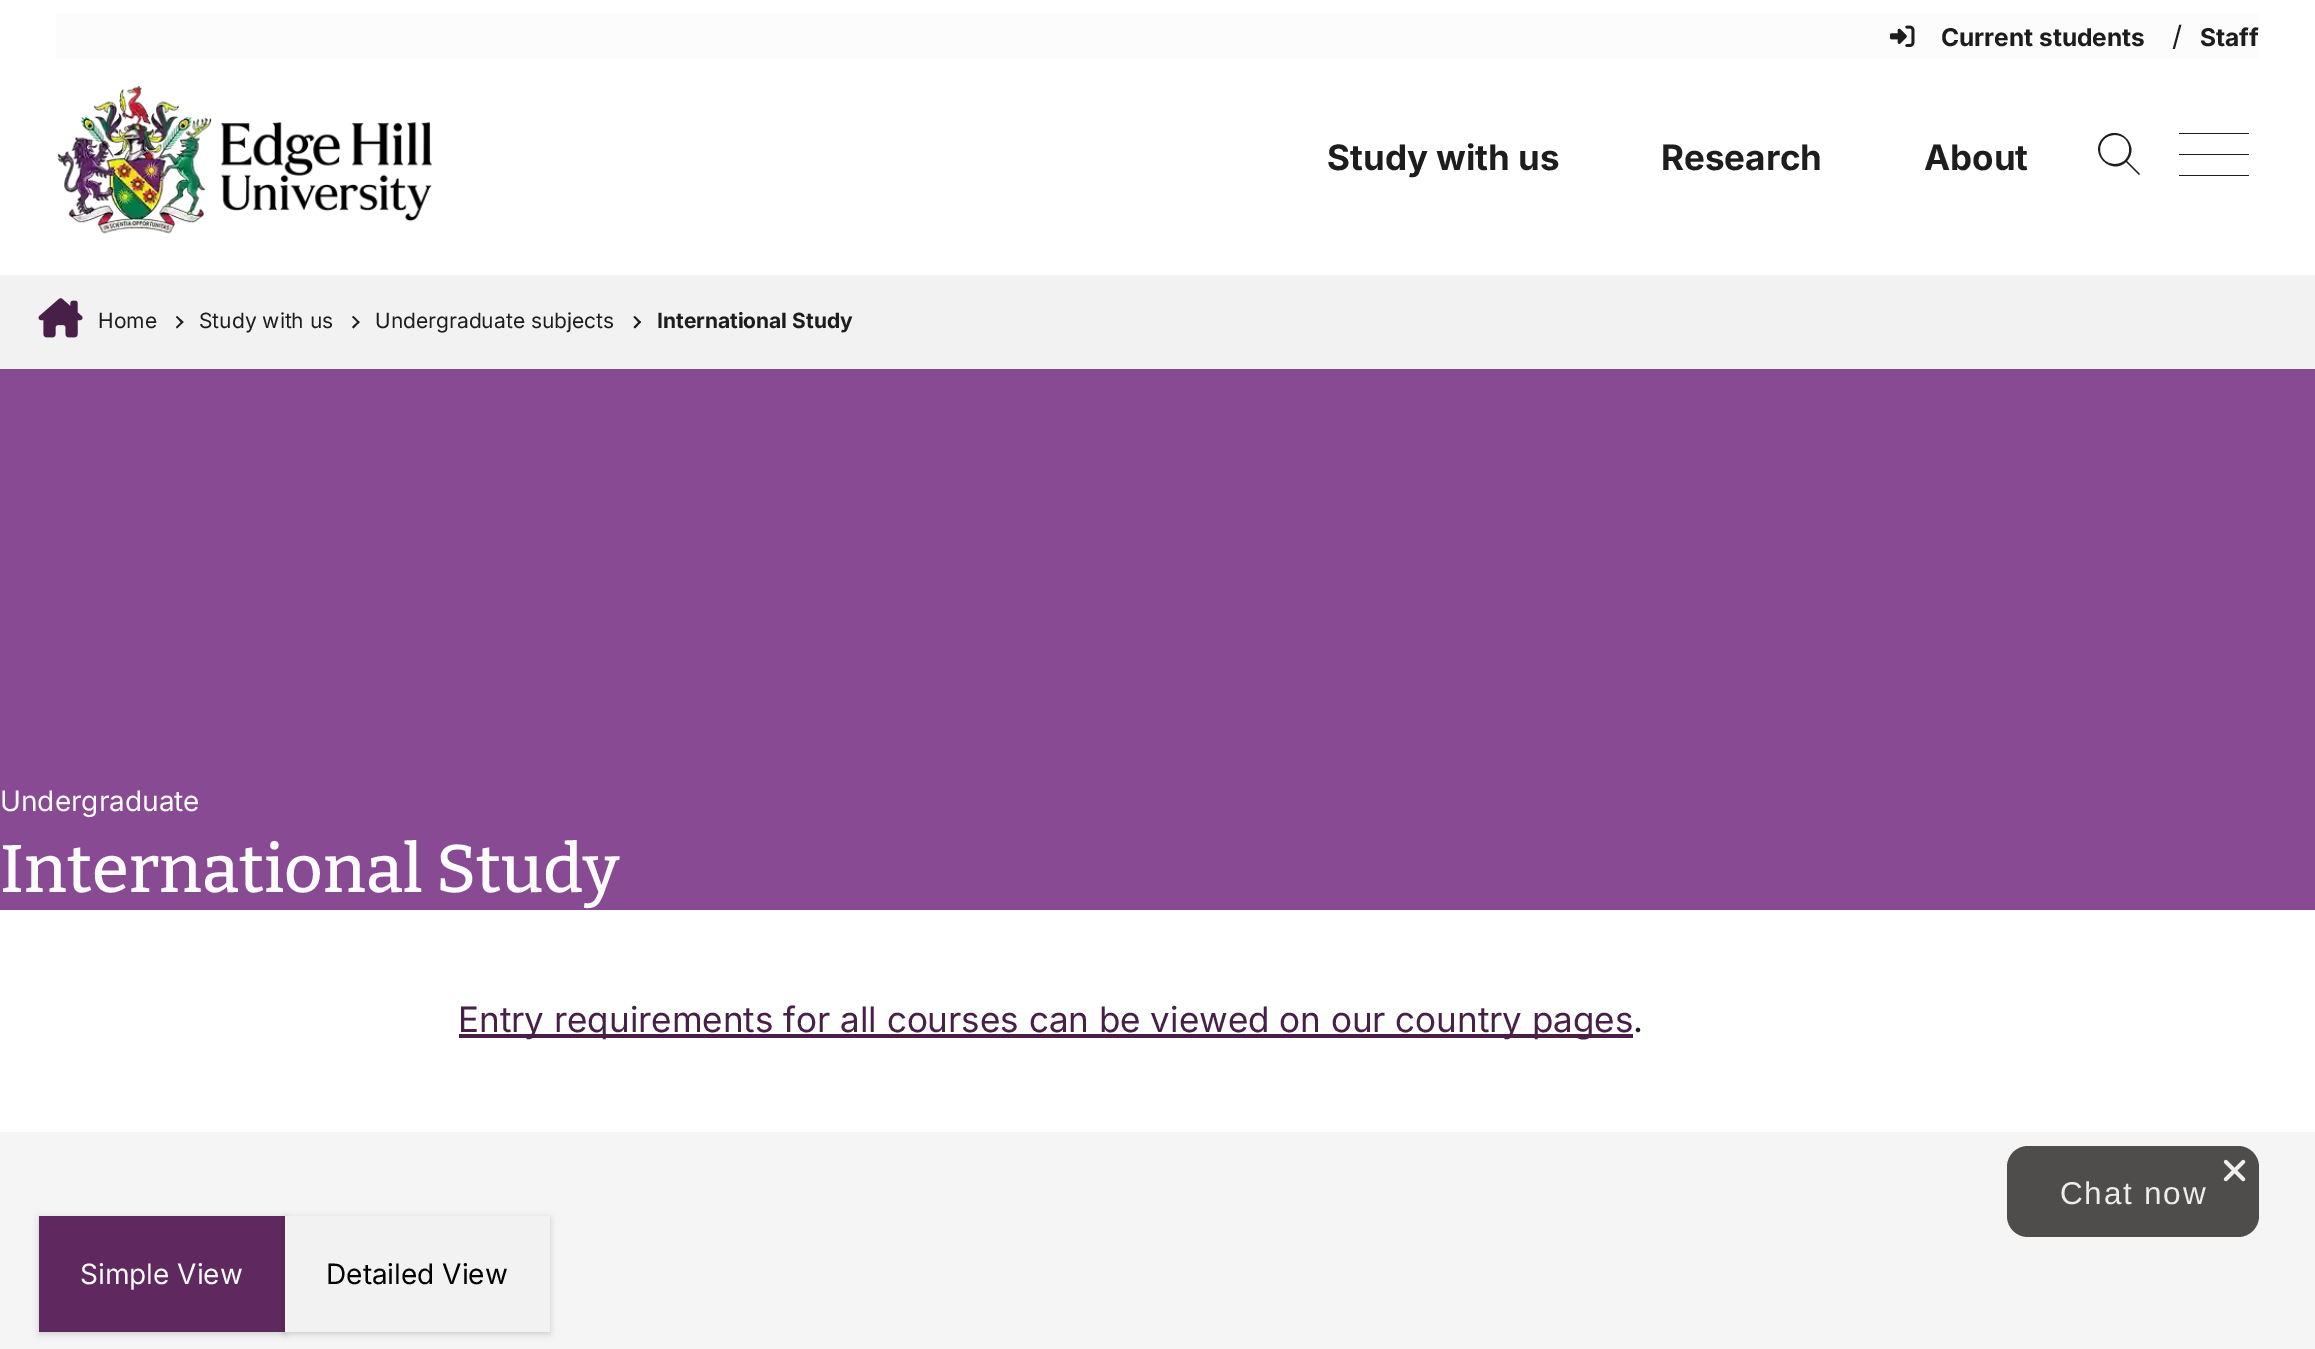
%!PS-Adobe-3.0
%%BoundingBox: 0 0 2315 1349
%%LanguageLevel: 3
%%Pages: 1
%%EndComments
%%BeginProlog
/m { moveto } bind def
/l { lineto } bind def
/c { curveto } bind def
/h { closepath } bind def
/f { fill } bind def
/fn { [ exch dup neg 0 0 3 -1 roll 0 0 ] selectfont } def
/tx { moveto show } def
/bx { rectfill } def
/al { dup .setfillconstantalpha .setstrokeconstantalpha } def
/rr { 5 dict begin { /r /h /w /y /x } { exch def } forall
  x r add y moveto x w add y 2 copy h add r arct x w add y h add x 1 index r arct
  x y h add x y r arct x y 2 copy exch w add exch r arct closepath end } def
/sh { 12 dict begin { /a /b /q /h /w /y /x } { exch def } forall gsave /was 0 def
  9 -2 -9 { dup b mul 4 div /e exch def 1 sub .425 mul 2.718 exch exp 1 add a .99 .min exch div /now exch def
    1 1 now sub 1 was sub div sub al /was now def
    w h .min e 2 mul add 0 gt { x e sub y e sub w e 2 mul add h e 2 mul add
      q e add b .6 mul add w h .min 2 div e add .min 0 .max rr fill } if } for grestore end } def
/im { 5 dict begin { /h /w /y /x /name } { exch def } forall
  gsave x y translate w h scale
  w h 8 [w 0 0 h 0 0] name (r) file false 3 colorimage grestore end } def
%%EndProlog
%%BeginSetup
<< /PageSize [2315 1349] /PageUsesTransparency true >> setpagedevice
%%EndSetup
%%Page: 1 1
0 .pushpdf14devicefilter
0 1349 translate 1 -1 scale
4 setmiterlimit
1 setgray
0 0 2315 1349 bx
0.988 0.988 0.992 setrgbcolor
56 14 2203 44 bx
(image0.raw) 1890 25 25 22 im
/Inter-Bold 24.5 fn
0.114 setgray
(Current students) 1941 46 tx
/Inter-Regular 28 fn
(/) 2172 46 tx
/Inter-Bold 24.5 fn
(Staff) 2200 46 tx
(image1.raw) 57 85 375 149 im
/Inter-Bold 35 fn
(Study with us) 1327 170 tx
(Research) 1661 170 tx
(About) 1924 170 tx
2126 162 m 2111 176 2088 153 2103 138 c 2118 123 2141 145 2127 161 c 2140 174 l 2139 175 l h 2115 135 m 2134 135 2134 164 2115 164 c 2095 164 2095 135 2115 135 c h eofill
2179 133 70 1 bx
2179 154 70 1 bx
2179 175 70 1 bx
0.949 setgray
0 275 2315 94 bx
(image2.raw) 38 298 45 40 im
/Inter-Regular 21 fn
0.114 setgray
(Home) 98 328 tx
177 316 m 183.5 322 l 182 323.5 l 176 317 l h f
182 321 m 183.5 322 l 177 328.5 l 176 327 l h f
(Study with us) 199 328 tx
353.5 316 m 359.5 322 l 358.5 323.5 l 352 317 l h f
358.5 321 m 359.5 322 l 353.5 328.5 l 352 327 l h f
(Undergraduate subjects) 375 328 tx
635 316 m 641 322 l 639.5 323.5 l 633.5 317 l h f
639.5 321 m 641 322 l 635 328.5 l 633.5 327 l h f
/Inter-Bold 21 fn
(International Study) 657 328 tx
0.533 0.29 0.576 setrgbcolor
0 369 2315 541 bx
/Inter-Regular 28 fn
0.988 0.988 0.992 setrgbcolor
(Undergraduate) 0 811 tx
/Bitter-Medium 67.25 fn
(International Study) 0 892 tx
0.278 0.122 0.278 setrgbcolor
459 1034 1174 4 bx
/Inter-Regular 35 fn
(Entry requirements for all courses can be viewed on our country pages) 458 1032 tx
0.114 setgray
(.) 1633 1032 tx
0.961 setgray
0 1132 2315 217 bx
0 setgray
39 1218 246 116 0 3.5 0.16 sh
0.373 0.161 0.373 setrgbcolor
39 1216 246 116 bx
/Inter-Regular 28 fn
0.988 0.988 0.992 setrgbcolor
(Simple View) 80 1284 tx
0 setgray
285 1218 265 116 0 3.5 0.16 sh
0.949 setgray
285 1216 265 116 bx
0 setgray
(Detailed View) 326 1284 tx
0.31 0.298 0.298 setrgbcolor
2007 1146 252 91 21 rr f
(image3.raw) 2223 1159 23 23 im
/LiberationSans-Regular 31.5 fn
0.929 setgray
2060 1204 m 1.75 0 (Chat now) ashow
.poppdf14devicefilter showpage
%%EOF
